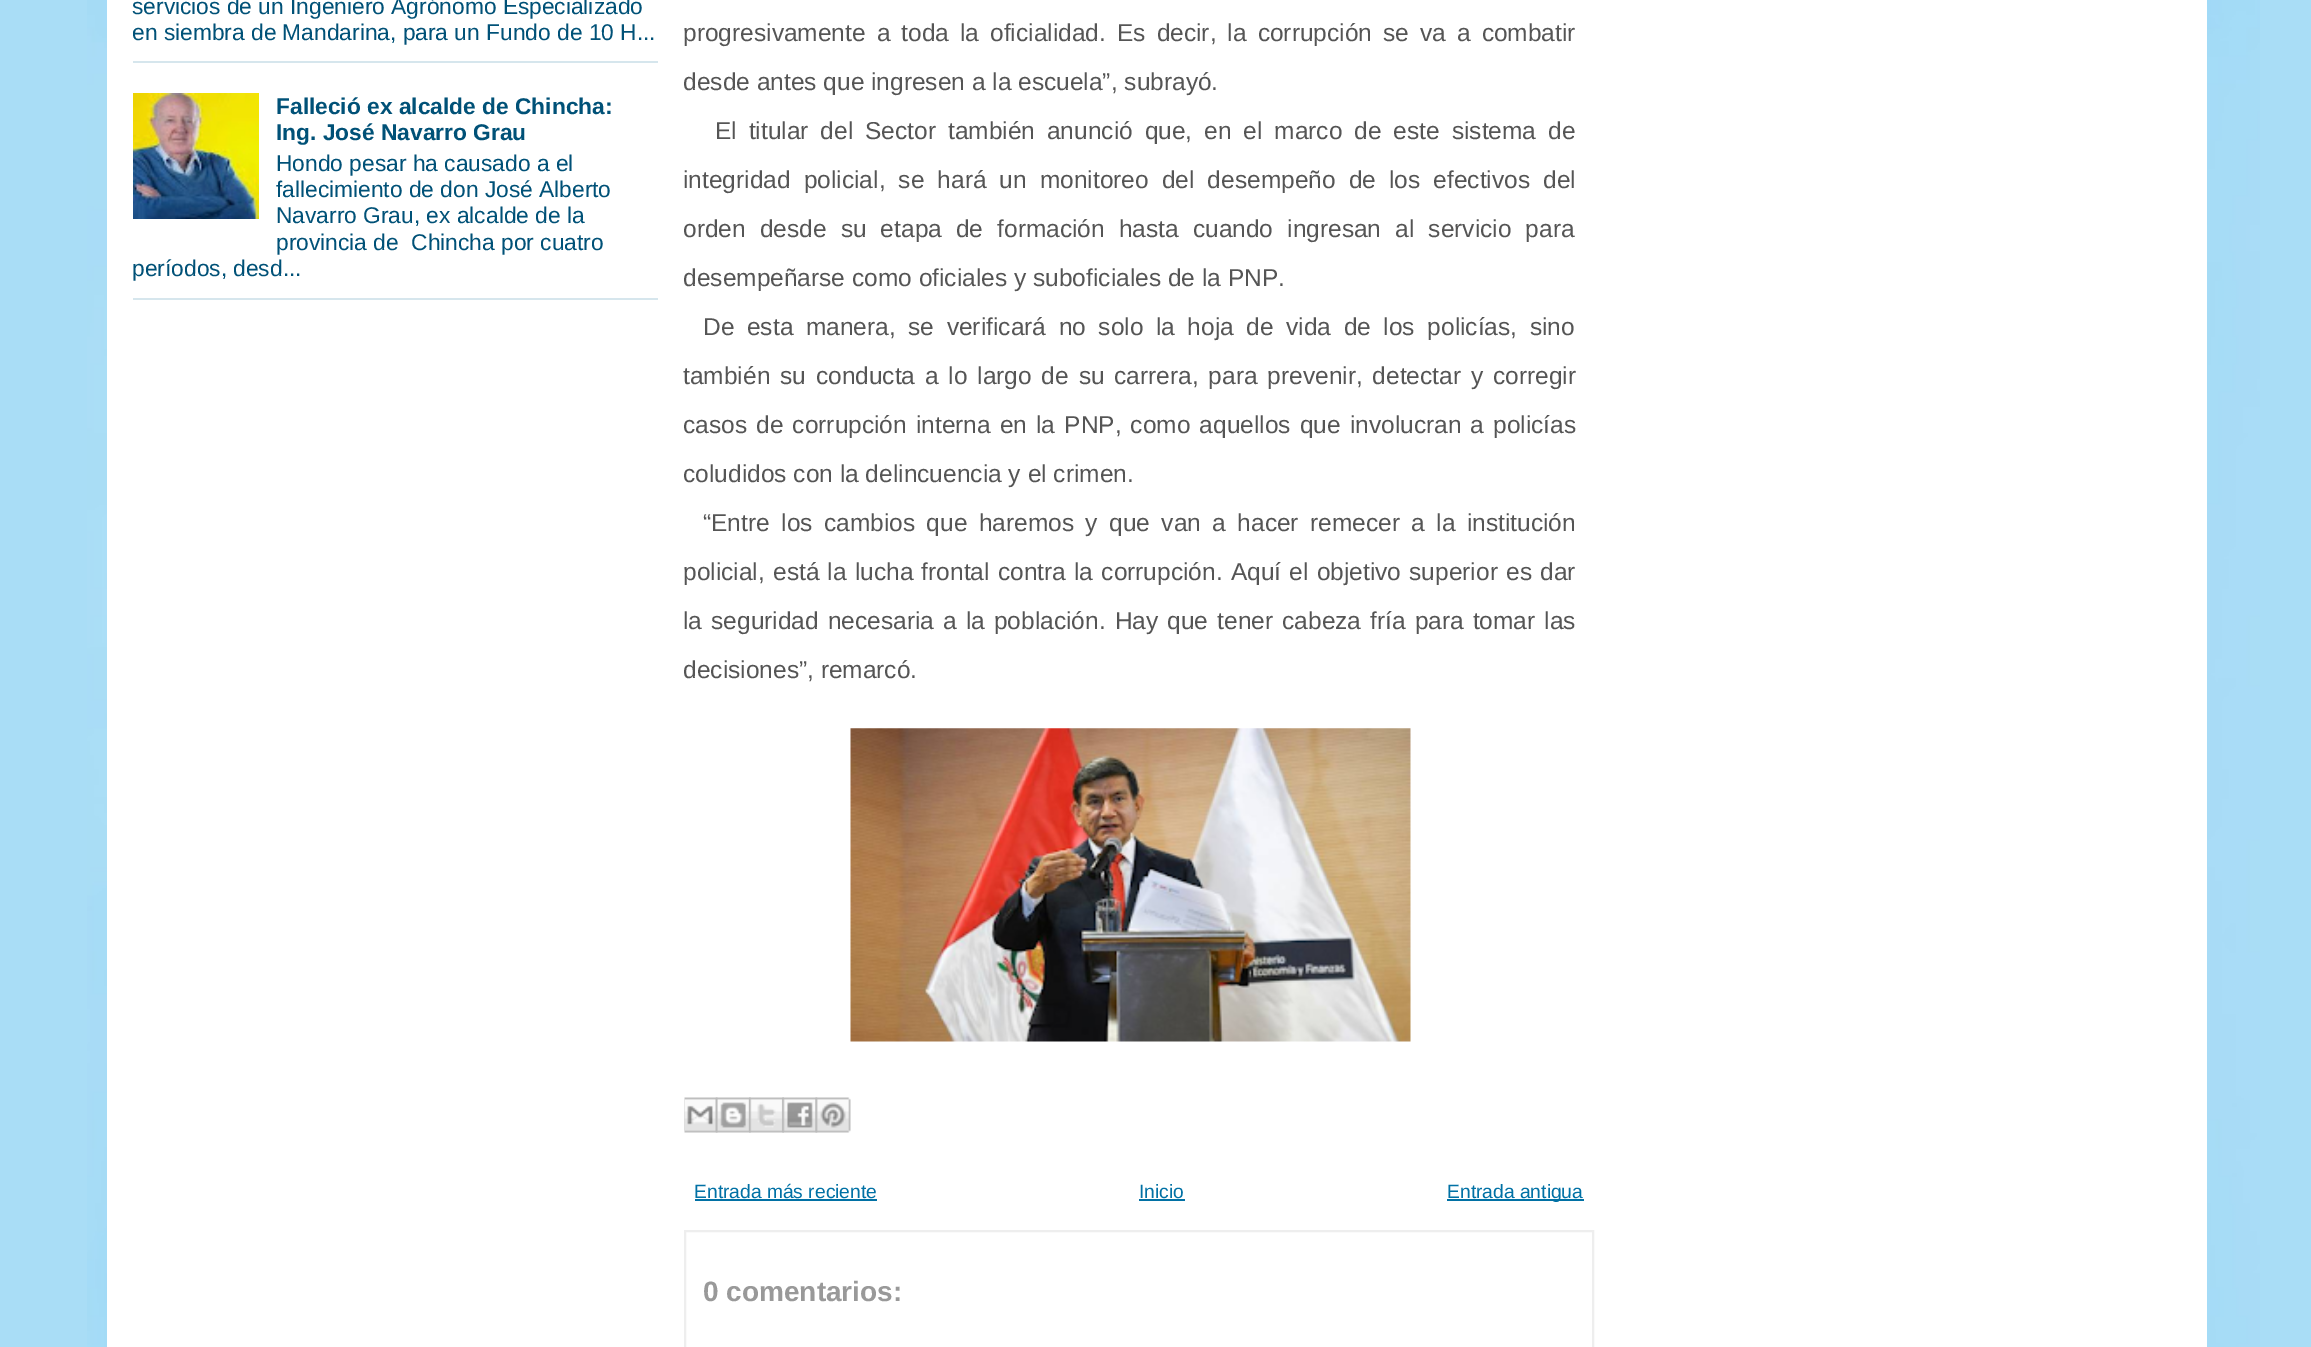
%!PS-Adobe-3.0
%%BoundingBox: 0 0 2311 1347
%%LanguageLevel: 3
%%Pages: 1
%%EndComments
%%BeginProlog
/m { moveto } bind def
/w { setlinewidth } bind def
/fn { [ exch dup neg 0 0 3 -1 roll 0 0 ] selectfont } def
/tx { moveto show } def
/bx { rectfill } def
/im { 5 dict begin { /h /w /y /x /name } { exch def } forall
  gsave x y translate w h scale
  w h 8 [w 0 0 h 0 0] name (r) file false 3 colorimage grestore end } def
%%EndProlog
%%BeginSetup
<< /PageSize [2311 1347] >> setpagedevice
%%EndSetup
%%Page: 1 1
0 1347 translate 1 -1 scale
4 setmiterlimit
0.663 0.867 0.965 setrgbcolor
0 0 2311 1347 bx
(image0.raw) 87 0 2173 1347 im
1 setgray
107 0 2100 1347 bx
0.839 0.902 0.929 setrgbcolor
133 61 525 2 bx
/LiberationSans-Regular 22.75 fn
0 0.318 0.467 setrgbcolor
(servicios de un Ingeniero Agrónomo Especializado) 132 14 tx
(en siembra de Mandarina, para un Fundo de 10 H...) 132 40 tx
0.839 0.902 0.929 setrgbcolor
133 298 525 2 bx
(image1.raw) 133 93 126 126 im
/LiberationSans-Bold 22.75 fn
0 0.318 0.467 setrgbcolor
(Falleció ex alcalde de Chincha:) 276 114 tx
(Ing. José Navarro Grau) 276 140 tx
/LiberationSans-Regular 22.75 fn
(Hondo pesar ha causado a el) 276 171 tx
(fallecimiento de don José Alberto) 276 197 tx
(Navarro Grau, ex alcalde de la) 276 223 tx
(provincia de  Chincha por cuatro) 276 250 tx
(períodos, desd...) 132 276 tx
/LiberationSans-Regular 24.5 fn
0.333 setgray
683 41 m 4.25 0 32 (progresivamente a toda la oficialidad. Es decir, la corrupción se va a combatir) widthshow
(desde antes que ingresen a la escuela”, subrayó.) 683 90 tx
715 139 m 5.1 0 32 (El titular del Sector también anunció que, en el marco de este sistema de) widthshow
683 188 m 6.25 0 32 (integridad policial, se hará un monitoreo del desempeño de los efectivos del) widthshow
683 237 m 7.25 0 32 (orden desde su etapa de formación hasta cuando ingresan al servicio para) widthshow
(desempeñarse como oficiales y suboficiales de la PNP.) 683 286 tx
703 335 m 5.75 0 32 (De esta manera, se verificará no solo la hoja de vida de los policías, sino) widthshow
683 384 m 3 0 32 (también su conducta a lo largo de su carrera, para prevenir, detectar y corregir) widthshow
683 433 m 2.25 0 32 (casos de corrupción interna en la PNP, como aquellos que involucran a policías) widthshow
(coludidos con la delincuencia y el crimen.) 683 482 tx
703 531 m 4.6 0 32 (“Entre los cambios que haremos y que van a hacer remecer a la institución) widthshow
683 580 m 1.4 0 32 (policial, está la lucha frontal contra la corrupción. Aquí el objetivo superior es dar) widthshow
683 629 m 2.25 0 32 (la seguridad necesaria a la población. Hay que tener cabeza fría para tomar las) widthshow
(decisiones”, remarcó.) 683 678 tx
(image2.raw) 850 728 561 314 im
(image3.raw) 684 1097 34 36 im
(image4.raw) 715 1097 36 36 im
(image5.raw) 749 1097 35 36 im
(image6.raw) 782 1097 36 36 im
(image7.raw) 815 1097 36 36 im
/LiberationSans-Regular 19.25 fn
0.004 0.443 0.647 setrgbcolor
(Entrada más reciente) 694 1198 tx
695 1199 182 2 bx
(Inicio) 1139 1198 tx
1139 1199 46 2 bx
1447 1199 137 2 bx
(Entrada antigua) 1447 1198 tx
0.933 setgray
2 w
685 1231 908 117 rectstroke
/LiberationSans-Bold 28 fn
0.6 setgray
(0 comentarios:) 703 1301 tx
showpage
%%EOF
